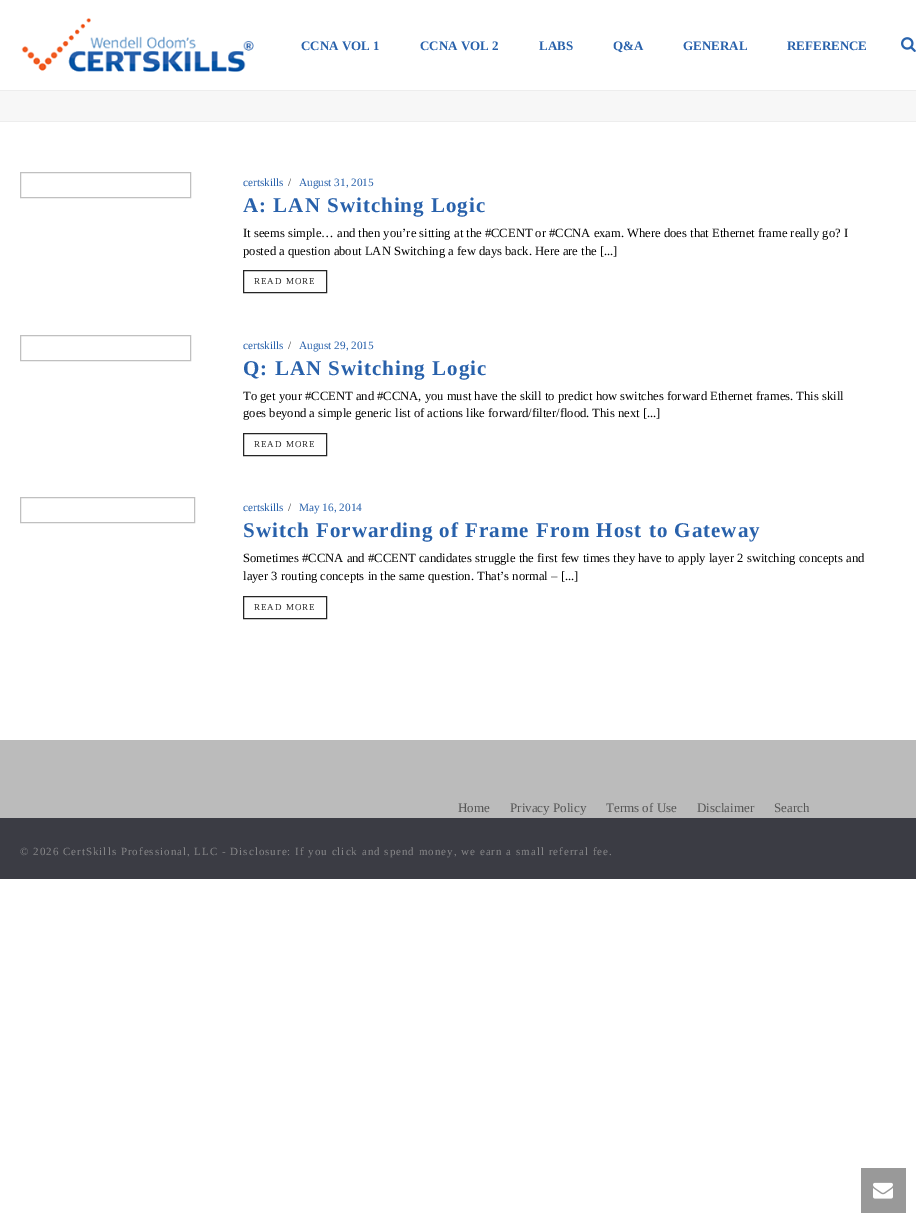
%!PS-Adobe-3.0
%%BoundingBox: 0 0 916 1228
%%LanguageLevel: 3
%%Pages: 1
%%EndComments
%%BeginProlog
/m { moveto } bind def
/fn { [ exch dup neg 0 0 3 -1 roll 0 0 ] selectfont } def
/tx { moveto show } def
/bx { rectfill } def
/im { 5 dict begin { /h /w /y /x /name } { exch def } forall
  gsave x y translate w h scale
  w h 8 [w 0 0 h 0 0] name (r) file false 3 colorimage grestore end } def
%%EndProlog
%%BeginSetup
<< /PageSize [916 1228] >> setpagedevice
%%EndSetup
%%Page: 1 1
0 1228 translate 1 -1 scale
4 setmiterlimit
1 setgray
0 0 916 1228 bx
0.969 setgray
0 91 916 30 bx
0.929 setgray
0 121 916 1 bx
0 90 916 1 bx
(image0.raw) 21 18 233 54 im
/LiberationSerif-Bold 13 fn
0.157 0.38 0.671 setrgbcolor
(CCNA VOL 1) 301 50 tx
(CCNA VOL 2) 420 50 tx
(LABS) 539 50 tx
(Q&A) 613 50 tx
(GENERAL) 683 50 tx
(REFERENCE) 787 50 tx
(image1.raw) 901 37 15 15 im
0.753 setgray
20.5 172.5 170 25 rectstroke
/LiberationSerif-Regular 11.25 fn
0.157 0.38 0.671 setrgbcolor
(certskills) 243 186 tx
0.251 setgray
(/) 288 186 tx
0.157 0.38 0.671 setrgbcolor
(August 31, 2015) 299 186 tx
/LiberationSerif-Bold 21 fn
243 212 m 1 0 (A: LAN Switching Logic) ashow
/LiberationSerif-Regular 12.6 fn
0 setgray
(It seems simple… and then you’re sitting at the #CCENT or #CCNA exam. Where does that Ethernet frame really go? I) 243 237 tx
(posted a question about LAN Switching a few days back. Here are the [...]) 243 255 tx
0.145 setgray
243.5 270.5 83 22 rectstroke
/LiberationSerif-Regular 9 fn
254 284 m 1 0 (READ MORE) ashow
0.753 setgray
20.5 335.5 170 25 rectstroke
/LiberationSerif-Regular 11.25 fn
0.157 0.38 0.671 setrgbcolor
(certskills) 243 349 tx
0.251 setgray
(/) 288 349 tx
0.157 0.38 0.671 setrgbcolor
(August 29, 2015) 299 349 tx
/LiberationSerif-Bold 21 fn
243 375 m 1 0 (Q: LAN Switching Logic) ashow
/LiberationSerif-Regular 12.6 fn
0 setgray
(To get your #CCENT and #CCNA, you must have the skill to predict how switches forward Ethernet frames. This skill) 243 400 tx
(goes beyond a simple generic list of actions like forward/filter/flood. This next [...]) 243 417 tx
0.145 setgray
243.5 433.5 83 22 rectstroke
/LiberationSerif-Regular 9 fn
254 447 m 1 0 (READ MORE) ashow
0.753 setgray
20.5 497.5 174 25 rectstroke
/LiberationSerif-Regular 11.25 fn
0.157 0.38 0.671 setrgbcolor
(certskills) 243 511 tx
0.251 setgray
(/) 288 511 tx
0.157 0.38 0.671 setrgbcolor
(May 16, 2014) 299 511 tx
/LiberationSerif-Bold 21 fn
243 537 m 1 0 (Switch Forwarding of Frame From Host to Gateway) ashow
/LiberationSerif-Regular 12.6 fn
0 setgray
(Sometimes #CCNA and #CCENT candidates struggle the first few times they have to apply layer 2 switching concepts and) 243 562 tx
(layer 3 routing concepts in the same question. That’s normal – [...]) 243 580 tx
0.145 setgray
243.5 596.5 83 22 rectstroke
/LiberationSerif-Regular 9 fn
254 610 m 1 0 (READ MORE) ashow
0.733 setgray
0 740 916 78 bx
/LiberationSerif-Regular 13 fn
0.333 setgray
(Home) 458 812 tx
(Privacy Policy) 510 812 tx
(Terms of Use) 606 812 tx
(Disclaimer) 697 812 tx
(Search) 774 812 tx
0.231 0.235 0.267 setrgbcolor
0 818 916 61 bx
/LiberationSerif-Regular 11 fn
0.525 0.525 0.533 setrgbcolor
20 855 m 1 0 (© 2026 CertSkills Professional, LLC - Disclosure: If you click and spend money, we earn a small referral fee.) ashow
0.6 setgray
861 1168 45 45 bx
(image2.raw) 873 1182 20 17 im
showpage
%%EOF
